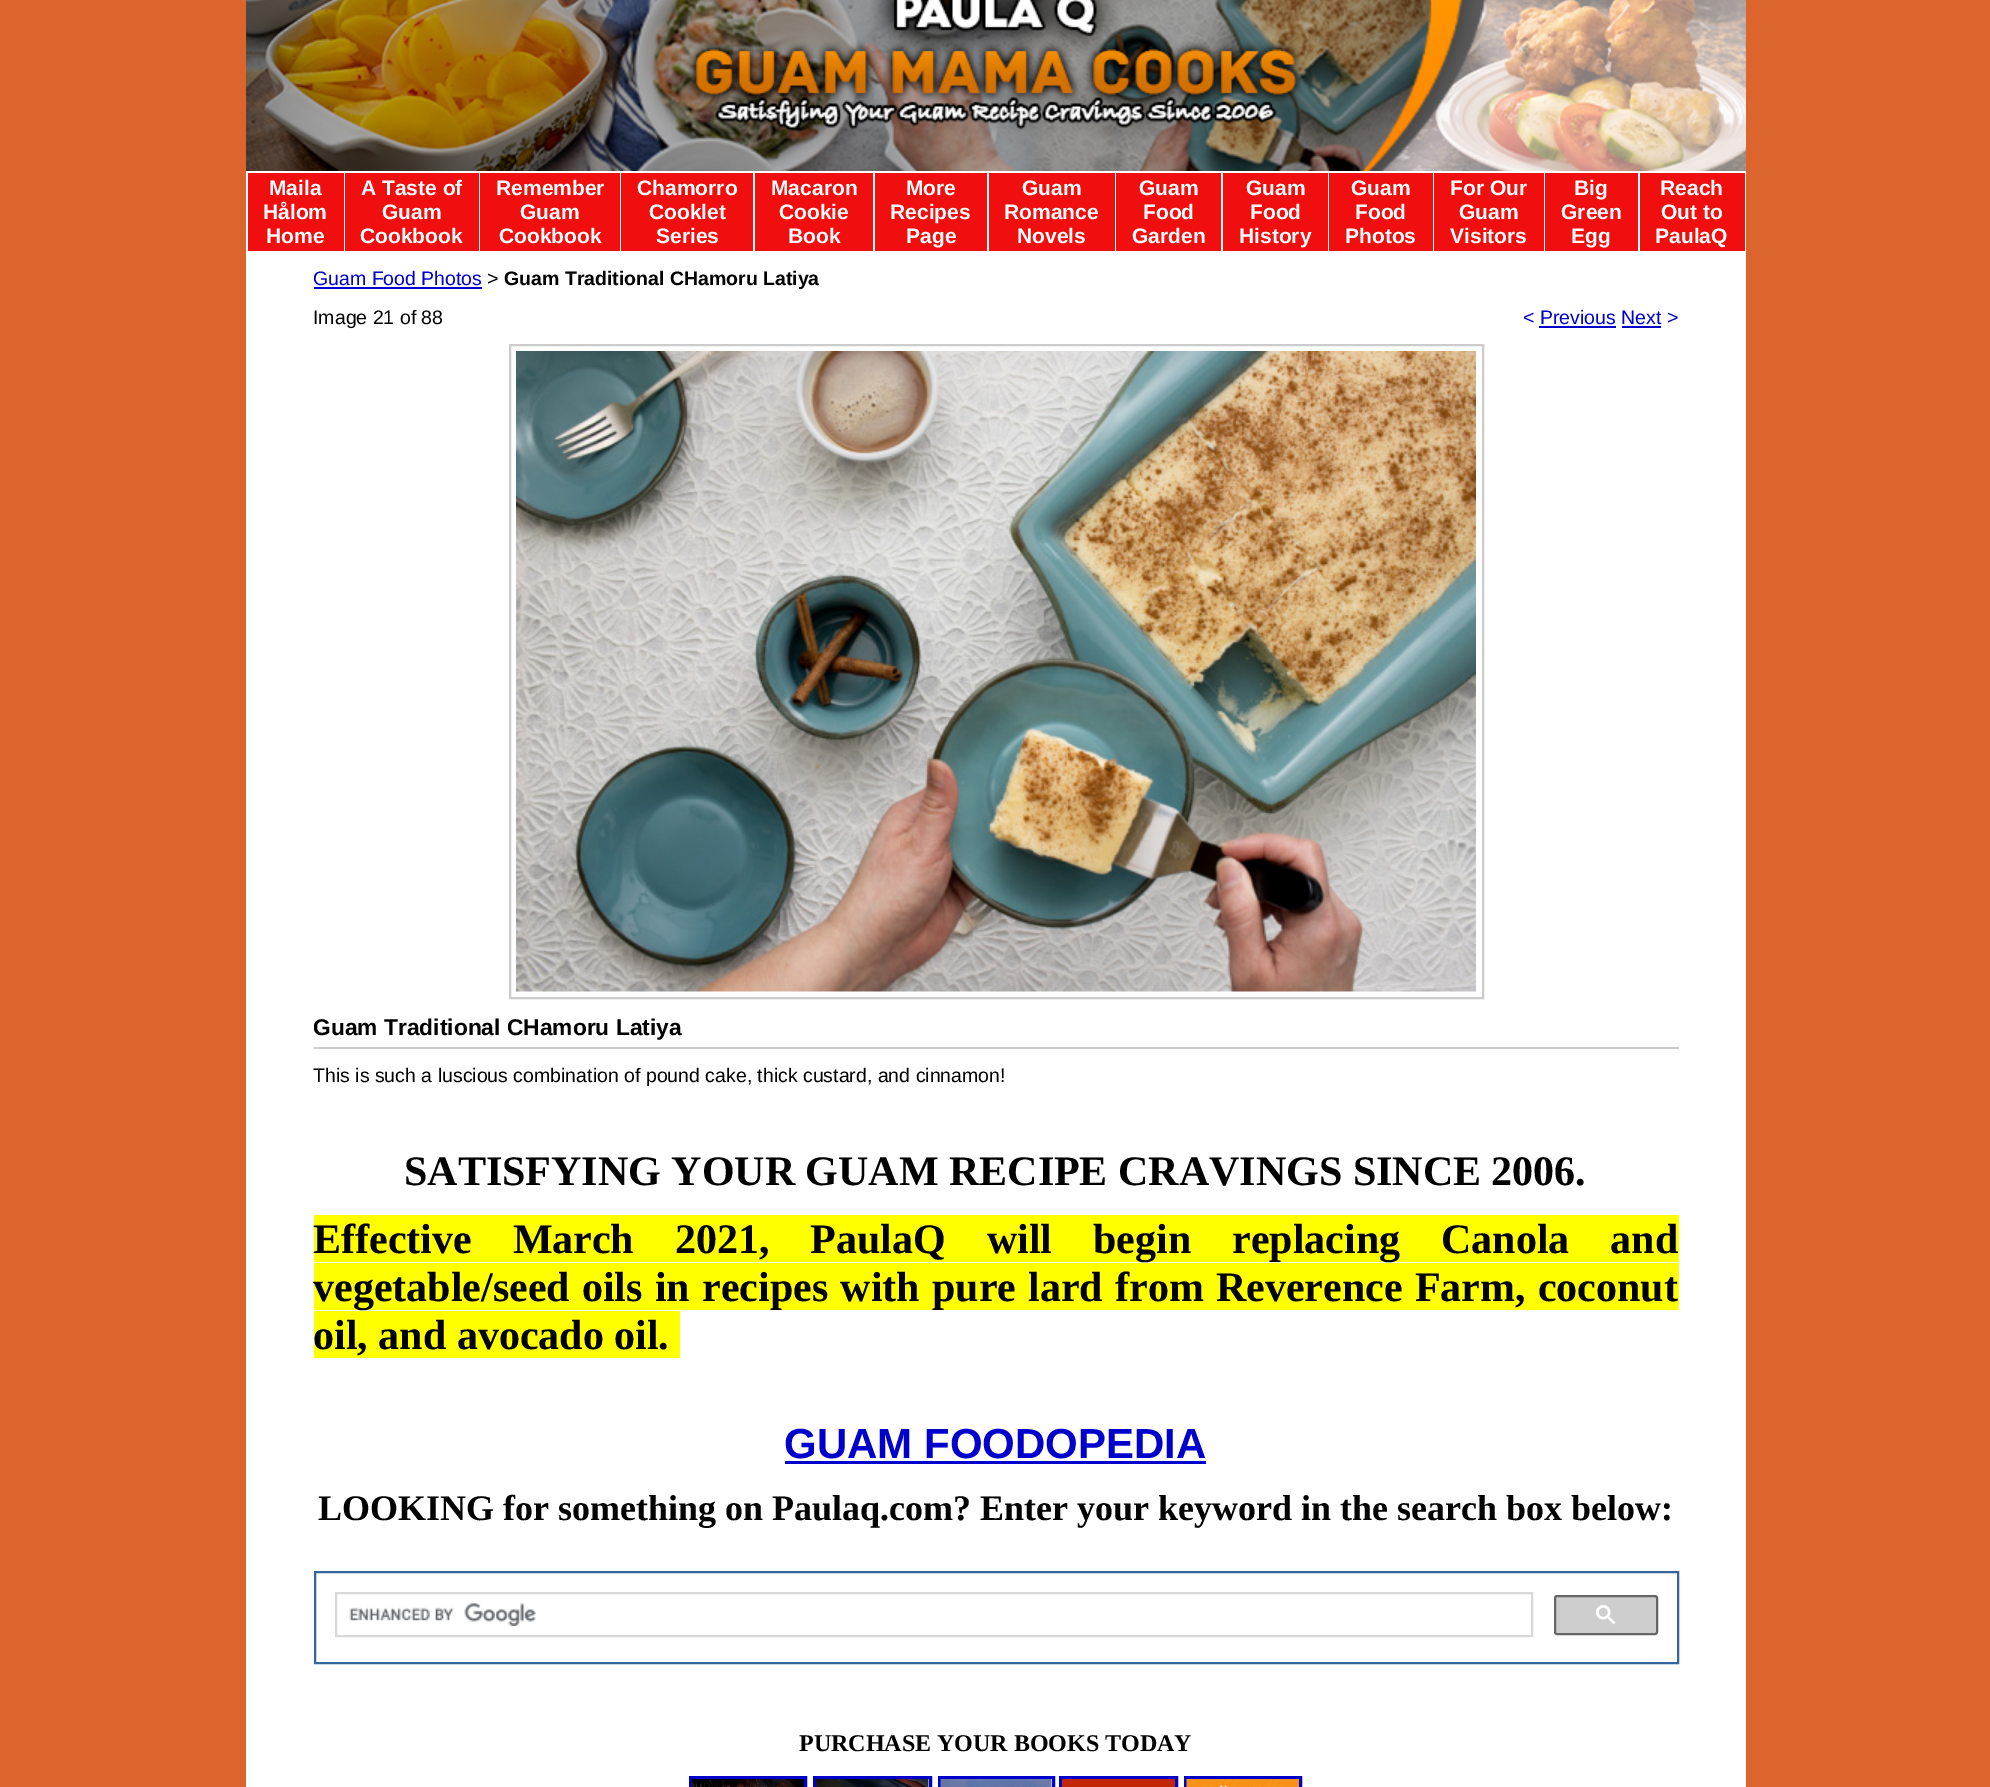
%!PS-Adobe-3.0
%%BoundingBox: 0 0 1990 1787
%%LanguageLevel: 3
%%Pages: 1
%%EndComments
%%BeginProlog
/m { moveto } bind def
/f { fill } bind def
/S { stroke } bind def
/q { gsave } bind def
/Q { grestore } bind def
/w { setlinewidth } bind def
/fn { [ exch dup neg 0 0 3 -1 roll 0 0 ] selectfont } def
/tx { moveto show } def
/bx { rectfill } def
/rr { 5 dict begin { /r /h /w /y /x } { exch def } forall
  x r add y moveto x w add y 2 copy h add r arct x w add y h add x 1 index r arct
  x y h add x y r arct x y 2 copy exch w add exch r arct closepath end } def
/im { 5 dict begin { /h /w /y /x /name } { exch def } forall
  gsave x y translate w h scale
  w h 8 [w 0 0 h 0 0] name (r) file false 3 colorimage grestore end } def
%%EndProlog
%%BeginSetup
<< /PageSize [1990 1787] >> setpagedevice
%%EndSetup
%%Page: 1 1
0 1787 translate 1 -1 scale
4 setmiterlimit
0.863 0.396 0.176 setrgbcolor
0 0 1990 1787 bx
(image0.raw) 246 0 1500 171 im
1 setgray
246 171 1500 1616 bx
0.941 0.055 0.055 setrgbcolor
248 173 96 78 bx
/LiberationSans-Bold 21 fn
1 setgray
(Maila) 269 195 tx
(Hålom) 263 219 tx
(Home) 266 243 tx
0.941 0.055 0.055 setrgbcolor
345 173 134 78 bx
1 setgray
(A Taste of) 361 195 tx
(Guam) 382 219 tx
(Cookbook) 360 243 tx
0.941 0.055 0.055 setrgbcolor
480 173 140 78 bx
1 setgray
(Remember) 496 195 tx
(Guam) 520 219 tx
(Cookbook) 499 243 tx
0.941 0.055 0.055 setrgbcolor
621 173 132 78 bx
1 setgray
(Chamorro) 637 195 tx
(Cooklet) 649 219 tx
(Series) 656 243 tx
0.941 0.055 0.055 setrgbcolor
755 173 118 78 bx
1 setgray
(Macaron) 771 195 tx
(Cookie) 779 219 tx
(Book) 788 243 tx
0.941 0.055 0.055 setrgbcolor
875 173 112 78 bx
1 setgray
(More) 906 195 tx
(Recipes) 890 219 tx
(Page) 906 243 tx
0.941 0.055 0.055 setrgbcolor
989 173 126 78 bx
1 setgray
(Guam) 1022 195 tx
(Romance) 1004 219 tx
(Novels) 1017 243 tx
0.941 0.055 0.055 setrgbcolor
1116 173 105 78 bx
1 setgray
(Guam) 1139 195 tx
(Food) 1143 219 tx
(Garden) 1132 243 tx
0.941 0.055 0.055 setrgbcolor
1223 173 105 78 bx
1 setgray
(Guam) 1246 195 tx
(Food) 1250 219 tx
(History) 1239 243 tx
0.941 0.055 0.055 setrgbcolor
1329 173 104 78 bx
1 setgray
(Guam) 1351 195 tx
(Food) 1355 219 tx
(Photos) 1345 243 tx
0.941 0.055 0.055 setrgbcolor
1434 173 110 78 bx
1 setgray
(For Our) 1450 195 tx
(Guam) 1459 219 tx
(Visitors) 1450 243 tx
0.941 0.055 0.055 setrgbcolor
1545 173 93 78 bx
1 setgray
(Big) 1574 195 tx
(Green) 1561 219 tx
(Egg) 1571 243 tx
0.941 0.055 0.055 setrgbcolor
1640 173 105 78 bx
1 setgray
(Reach) 1660 195 tx
(Out to) 1661 219 tx
(PaulaQ) 1655 243 tx
/LiberationSans-Regular 19.5 fn
0 0 0.8 setrgbcolor
(Guam Food Photos) 313 285 tx
314 287 168 2 bx
/LiberationMono-Regular 19.5 fn
0 setgray
(>) 487 285 tx
/LiberationSans-Bold 19.5 fn
(Guam Traditional CHamoru Latiya) 504 285 tx
/LiberationSans-Regular 19.5 fn
(Image 21 of 88) 313 324 tx
0 0 0.8 setrgbcolor
(< Previous Next >) 1523 324 tx
1539 326 77 2 bx
1622 326 39 2 bx
0.8 setgray
2 w
510 345 973 653 rectstroke
(image1.raw) 516 351 960 641 im
314 1047 1365 2 bx
/LiberationSans-Bold 22.8 fn
0 setgray
(Guam Traditional CHamoru Latiya) 313 1035 tx
/LiberationSans-Regular 19.5 fn
(This is such a luscious combination of pound cake, thick custard, and cinnamon!) 313 1082 tx
/LiberationSerif-Bold 42 fn
(SATISFYING YOUR GUAM RECIPE CRAVINGS SINCE 2006.) 404 1185 tx
1 1 0 setrgbcolor
314 1215 1365 47 bx
0 setgray
313 1253 m 30.5 0 32 (Effective March 2021, PaulaQ will begin replacing Canola and) widthshow
1 1 0 setrgbcolor
314 1263 1365 47 bx
0 setgray
313 1301 m 1.75 0 32 (vegetable/seed oils in recipes with pure lard from Reverence Farm, coconut) widthshow
1 1 0 setrgbcolor
314 1311 366 47 bx
0 setgray
(oil, and avocado oil.) 313 1349 tx
/LiberationSans-Bold 42 fn
0 0 0.8 setrgbcolor
(GUAM FOODOPEDIA) 784 1458 tx
785 1461 421 3 bx
/LiberationSerif-Bold 36 fn
0 setgray
(LOOKING for something on Paulaq.com? Enter your keyword in the search box below:) 318 1520 tx
0.2 0.4 0.6 setrgbcolor
315 1572 1363 91 rectstroke
0.851 setgray
336 1593 1196 43 rectstroke
(image2.raw) 349 1603 187 23 im
0.808 setgray
1555 1596 102 38 2 rr q f Q
0.4 setgray
S
(image3.raw) 1596 1605 20 20 im
/LiberationSerif-Bold 24 fn
0 setgray
(PURCHASE YOUR BOOKS TODAY) 799 1751 tx
0 0 0.8 setrgbcolor
3 w
690.5 1777.5 115 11 rectstroke
814.5 1777.5 116 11 rectstroke
939.5 1777.5 114 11 rectstroke
1060.5 1777.5 116 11 rectstroke
1185.5 1777.5 115 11 rectstroke
(image4.raw) 691 1779 113 8 im
(image5.raw) 816 1779 113 8 im
(image6.raw) 940 1779 112 8 im
0.765 0.149 0.02 setrgbcolor
1062 1779 113 8 bx
(image7.raw) 1186 1779 113 8 im
showpage
%%EOF
